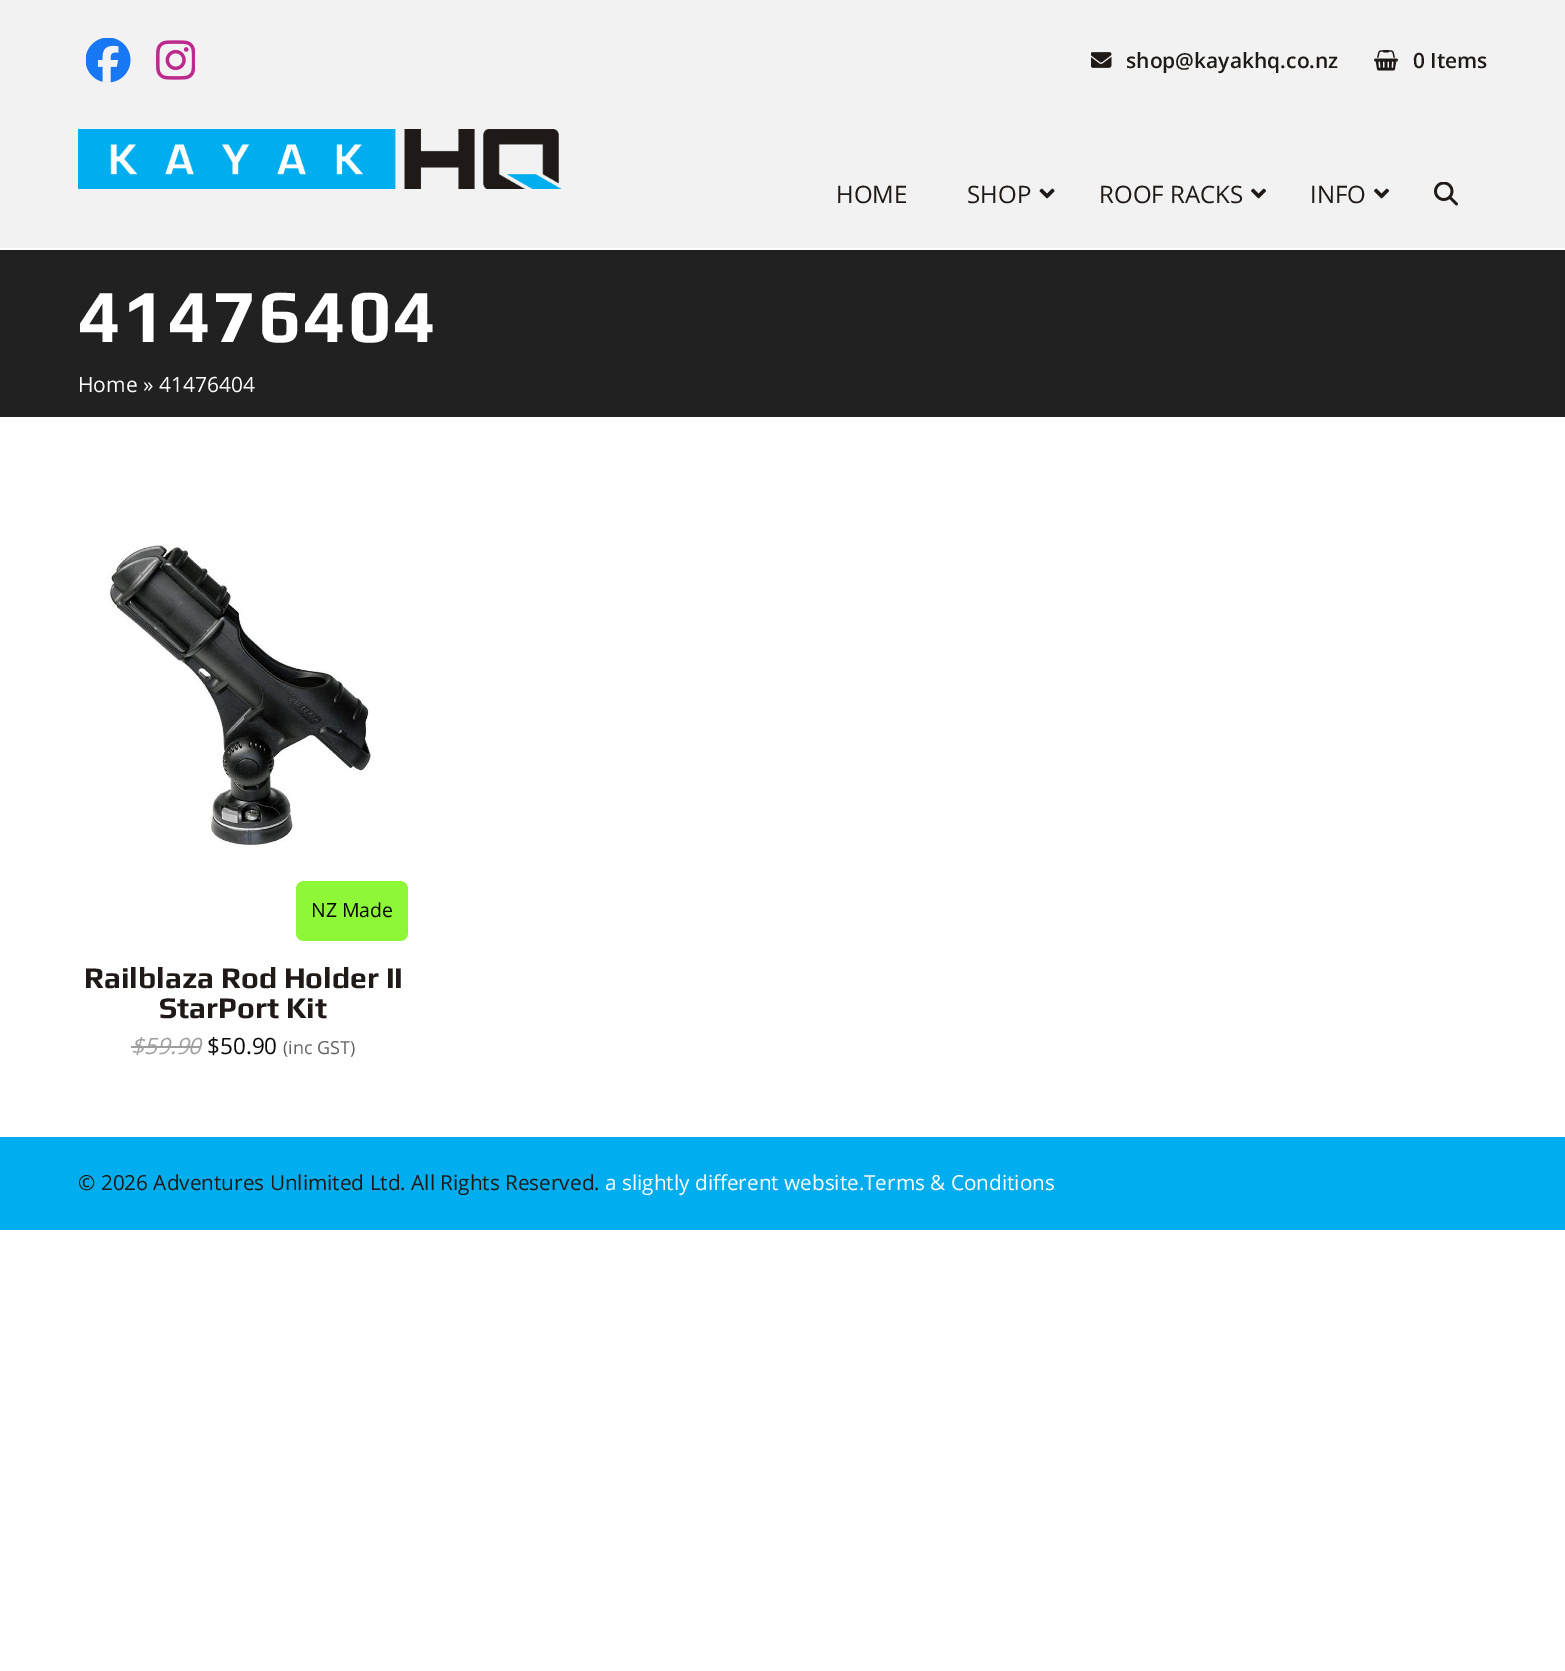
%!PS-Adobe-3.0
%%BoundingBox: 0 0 1565 1671
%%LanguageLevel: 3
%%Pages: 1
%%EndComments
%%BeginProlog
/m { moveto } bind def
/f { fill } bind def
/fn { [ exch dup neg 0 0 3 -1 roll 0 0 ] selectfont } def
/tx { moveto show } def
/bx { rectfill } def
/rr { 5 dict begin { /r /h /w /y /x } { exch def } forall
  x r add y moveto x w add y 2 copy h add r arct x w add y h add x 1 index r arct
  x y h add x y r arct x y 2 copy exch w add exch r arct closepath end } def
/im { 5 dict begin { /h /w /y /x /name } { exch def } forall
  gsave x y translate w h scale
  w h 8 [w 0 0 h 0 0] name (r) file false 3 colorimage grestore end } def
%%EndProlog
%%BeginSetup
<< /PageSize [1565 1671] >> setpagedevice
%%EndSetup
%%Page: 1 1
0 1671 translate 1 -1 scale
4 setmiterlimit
1 setgray
0 0 1565 1671 bx
0.949 setgray
0 0 1565 248 bx
(image0.raw) 86 38 45 45 im
(image1.raw) 156 40 39 40 im
(image2.raw) 1091 52 21 16 im
/OpenSans-SemiBold 21 fn
0.122 0.102 0.09 setrgbcolor
(shop@kayakhq.co.nz) 1126 68 tx
(image3.raw) 1374 50 24 21 im
(0 Items) 1413 68 tx
(image4.raw) 78 129 484 60 im
/OpenSans-Regular 24 fn
(HOME) 836 203 tx
(SHOP) 967 203 tx
(image5.raw) 1039 188 16 11 im
(ROOF RACKS) 1099 203 tx
(image6.raw) 1251 188 15 11 im
(INFO) 1310 203 tx
(image6.raw) 1374 188 15 11 im
(image7.raw) 1434 182 24 24 im
0.129 setgray
0 250 1565 167 bx
/Play-Bold 75 fn
1 setgray
78 342 m 1.5 0 (41476404) ashow
/OpenSans-Regular 21 fn
(Home » 41476404) 78 392 tx
(image8.raw) 109 543 264 303 im
0.557 0.969 0.22 setrgbcolor
296 881 112 60 8 rr f
/OpenSans-Regular 19.5 fn
0.039 0.031 0.031 setrgbcolor
(NZ Made) 311 917 tx
/Play-Bold 30 fn
0.122 0.102 0.09 setrgbcolor
(Railblaza Rod Holder II) 84 988 tx
(StarPort Kit) 159 1018 tx
/OpenSans-Italic 22.5 fn
0.62 setgray
($59.90) 131 1054 tx
131 1046 70 2 bx
/OpenSans-Regular 22.5 fn
0.039 0.031 0.031 setrgbcolor
($50.90) 207 1054 tx
/OpenSans-Regular 18 fn
0.38 setgray
(\(inc GST\)) 283 1054 tx
0 0.682 0.937 setrgbcolor
0 1137 1565 93 bx
/OpenSans-Regular 20.75 fn
0.122 0.102 0.09 setrgbcolor
(© 2026 Adventures Unlimited Ltd. All Rights Reserved.) 78 1190 tx
1 setgray
(a slightly different website.) 605 1190 tx
(Terms & Conditions) 864 1190 tx
showpage
%%EOF
